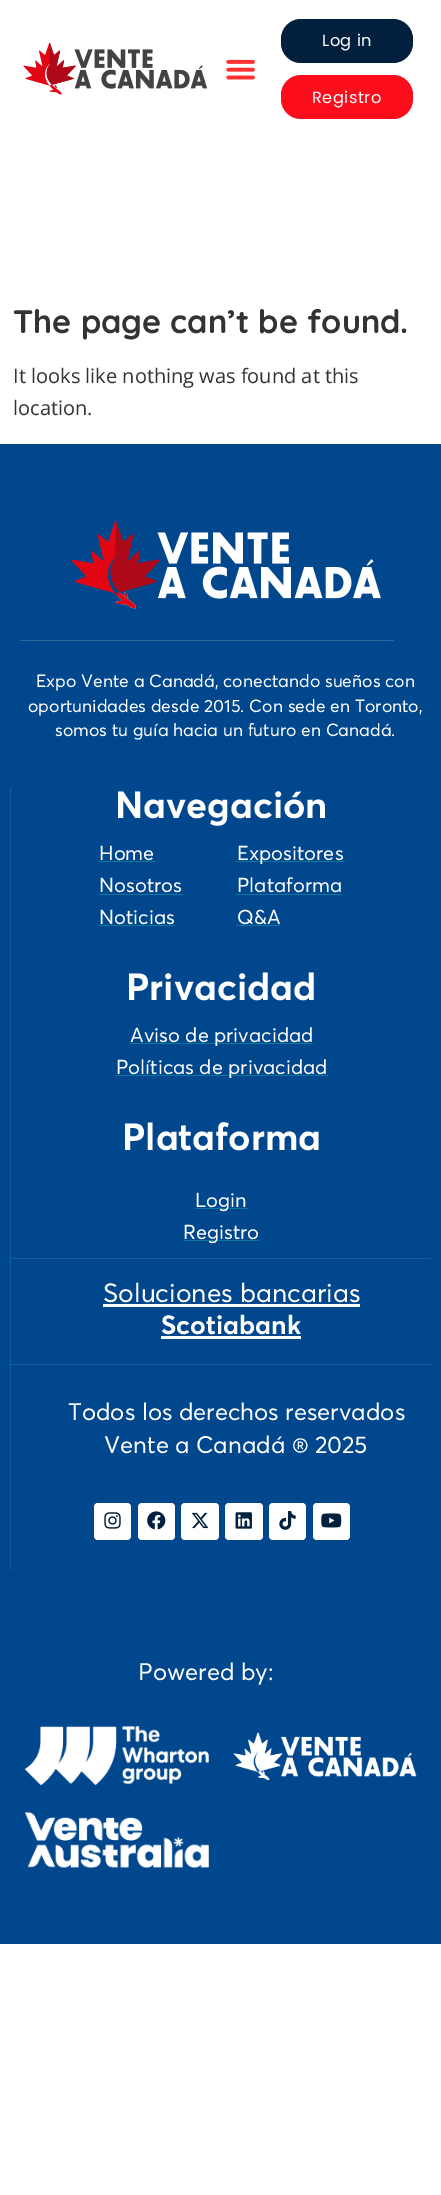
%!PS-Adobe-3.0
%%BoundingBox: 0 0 441 2195
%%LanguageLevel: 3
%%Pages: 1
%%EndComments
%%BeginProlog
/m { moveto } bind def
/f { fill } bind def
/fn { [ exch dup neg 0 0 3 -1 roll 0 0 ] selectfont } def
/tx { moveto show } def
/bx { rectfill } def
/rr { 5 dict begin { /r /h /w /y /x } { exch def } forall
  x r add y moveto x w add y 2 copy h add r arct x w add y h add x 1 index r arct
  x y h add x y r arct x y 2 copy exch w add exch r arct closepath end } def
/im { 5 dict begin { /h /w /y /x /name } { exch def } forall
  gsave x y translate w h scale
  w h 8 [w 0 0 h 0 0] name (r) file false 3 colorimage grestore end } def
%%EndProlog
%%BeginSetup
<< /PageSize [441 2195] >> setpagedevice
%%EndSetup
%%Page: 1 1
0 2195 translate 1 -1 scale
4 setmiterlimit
1 setgray
0 0 441 2195 bx
(image0.raw) 23 42 185 53 im
(image1.raw) 226 59 29 21 im
0.008 0.125 0.243 setrgbcolor
281 19 132 44 20 rr f
/Poppins-Regular 16.25 fn
1 setgray
322 46 m 0.5 0 (Log in) ashow
0.984 0.051 0.106 setrgbcolor
281 75 132 44 20 rr f
1 setgray
312 103 m 0.5 0 (Registro) ashow
/Quicksand-Bold 32.5 fn
0.2 setgray
(The page can’t be found.) 13 333 tx
/OpenSans-Regular 20 fn
(It looks like nothing was found at this) 13 383 tx
(location.) 13 415 tx
0 0.278 0.557 setrgbcolor
0 444 441 1500 bx
(image2.raw) 71 521 310 88 im
0.18 0.4 0.62 setrgbcolor
20 640 374 1 bx
/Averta-Regular 17.5 fn
1 setgray
(Expo Vente a Canadá, conectando sueños con) 36 687 tx
(oportunidades desde 2015. Con sede en Toronto,) 28 712 tx
(somos tu guía hacia un futuro en Canadá.) 55 736 tx
0.063 0.38 0.604 setrgbcolor
10 788 1 782 bx
/Averta-Bold 37.5 fn
1 setgray
(Navegación) 115 818 tx
/Averta-Regular 20 fn
(Home) 99 860 tx
0.024 0.471 0.616 setrgbcolor
99 861 56 1 bx
1 setgray
(Nosotros) 99 892 tx
0.024 0.471 0.616 setrgbcolor
99 894 84 1 bx
1 setgray
(Noticias) 99 924 tx
0.024 0.471 0.616 setrgbcolor
99 925 76 1 bx
236 861 108 1 bx
1 setgray
(Expositores) 237 860 tx
(Plataforma) 237 892 tx
0.024 0.471 0.616 setrgbcolor
236 894 105 1 bx
1 setgray
(Q&A) 237 924 tx
0.024 0.471 0.616 setrgbcolor
236 925 44 1 bx
/Averta-Bold 37.5 fn
1 setgray
(Privacidad) 126 1000 tx
0.024 0.471 0.616 setrgbcolor
130 1043 183 1 bx
/Averta-Regular 20 fn
1 setgray
(Aviso de privacidad) 130 1042 tx
0.024 0.471 0.616 setrgbcolor
115 1075 213 1 bx
1 setgray
(Políticas de privacidad) 116 1074 tx
/Averta-Bold 37.5 fn
(Plataforma) 122 1150 tx
0.024 0.471 0.616 setrgbcolor
195 1208 53 1 bx
/Averta-Regular 20 fn
1 setgray
(Login) 195 1207 tx
0.024 0.471 0.616 setrgbcolor
184 1240 75 1 bx
1 setgray
(Registro) 183 1239 tx
0.063 0.38 0.604 setrgbcolor
11 1258 420 1 bx
11 1364 420 1 bx
/Averta-Regular 26.25 fn
1 setgray
(Soluciones bancarias) 103 1302 tx
103 1304 257 3 bx
/Averta-Bold 26.25 fn
(Scotiabank) 161 1334 tx
161 1336 140 3 bx
/Averta-Regular 23.75 fn
(Todos los derechos reservados) 68 1420 tx
(Vente a Canadá ® 2025) 104 1453 tx
94 1503 37 37 4 rr f
(image3.raw) 104 1512 17 17 im
138 1503 37 37 4 rr f
(image4.raw) 147 1511 19 19 im
181 1503 38 37 4 rr f
(image5.raw) 191 1512 18 17 im
225 1503 38 37 4 rr f
(image6.raw) 235 1512 17 17 im
269 1503 37 37 4 rr f
(image7.raw) 279 1511 17 19 im
313 1503 37 37 4 rr f
(image8.raw) 321 1513 21 15 im
(Powered by:) 138 1680 tx
(image9.raw) 25 1726 184 59 im
(image10.raw) 233 1732 184 48 im
(image11.raw) 25 1812 184 56 im
showpage
%%EOF
